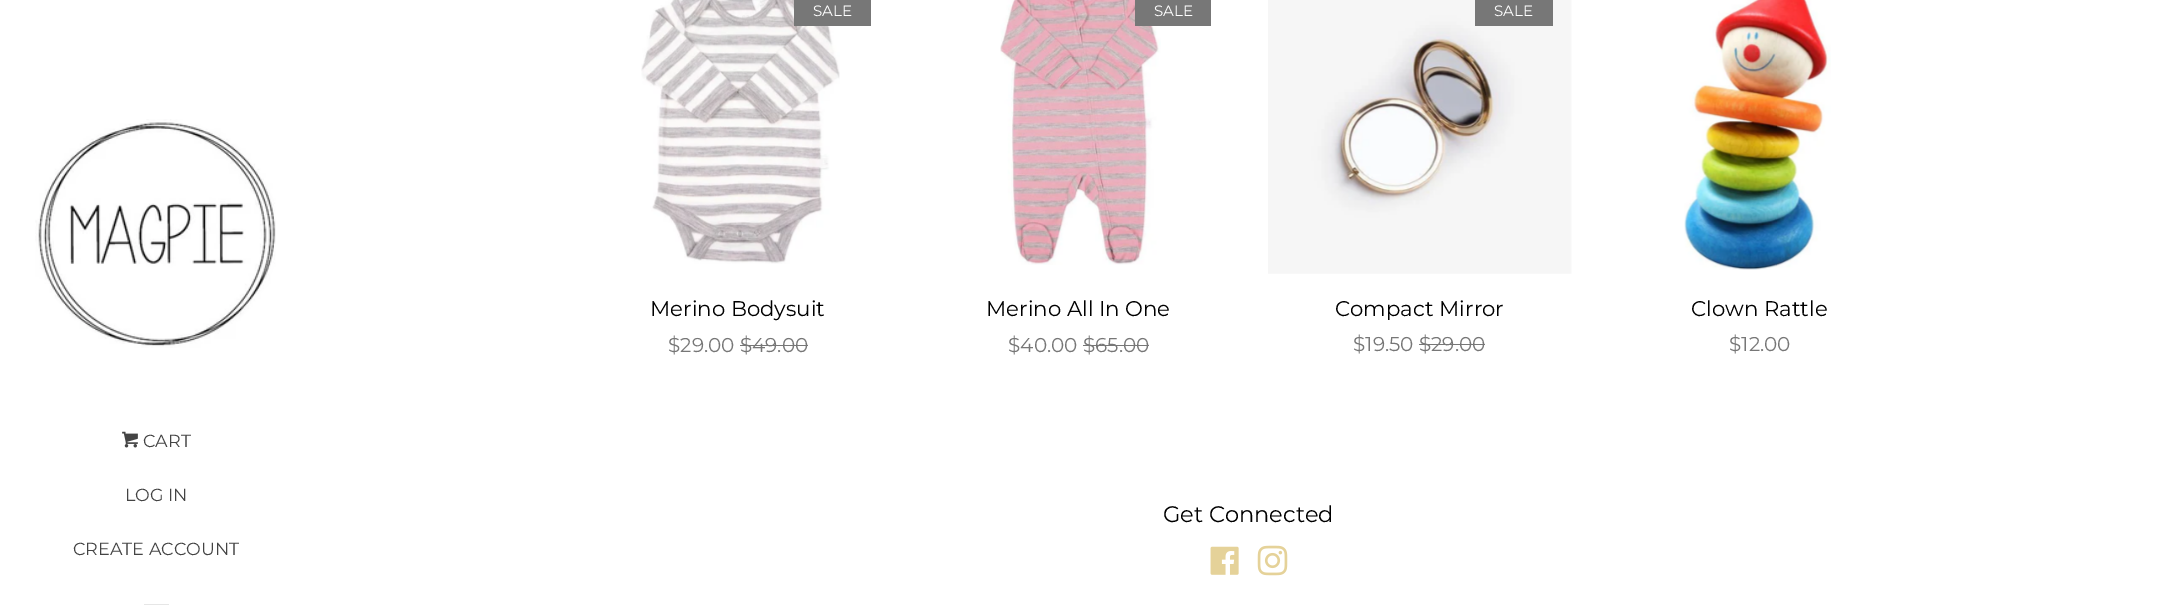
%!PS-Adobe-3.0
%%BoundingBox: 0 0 2184 611
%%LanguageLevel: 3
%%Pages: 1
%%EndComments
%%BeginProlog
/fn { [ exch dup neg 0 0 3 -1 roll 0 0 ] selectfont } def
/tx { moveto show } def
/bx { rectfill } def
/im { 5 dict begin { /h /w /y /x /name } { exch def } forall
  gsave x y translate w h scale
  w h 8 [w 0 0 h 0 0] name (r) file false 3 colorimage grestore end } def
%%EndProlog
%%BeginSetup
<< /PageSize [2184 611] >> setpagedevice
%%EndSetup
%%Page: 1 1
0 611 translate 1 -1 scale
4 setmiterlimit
1 setgray
0 0 2184 611 bx
(image0.raw) 35 119 241 229 im
(image1.raw) 122 431 16 17 im
/Montserrat-Regular 17.5 fn
0.267 setgray
(CART) 143 447 tx
(LOG IN) 125 501 tx
(CREATE ACCOUNT) 73 555 tx
0.902 setgray
144 604 25 1 bx
(image2.raw) 641 0 199 264 im
0.467 setgray
794 0 77 26 bx
/Montserrat-Regular 15 fn
1 setgray
(SALE) 813 16 tx
/Montserrat-Regular 21.25 fn
0 setgray
(Merino Bodysuit) 650 316 tx
/Montserrat-Regular 20 fn
0.467 setgray
($29.00 $49.00) 668 352 tx
740 345 68 1 bx
(image3.raw) 1000 0 161 265 im
1135 0 76 26 bx
/Montserrat-Regular 15 fn
1 setgray
(SALE) 1154 16 tx
/Montserrat-Regular 21.25 fn
0 setgray
(Merino All In One) 986 316 tx
/Montserrat-Regular 20 fn
0.467 setgray
($40.00 $65.00) 1008 352 tx
1083 345 66 1 bx
(image4.raw) 1268 0 304 274 im
1475 0 78 26 bx
/Montserrat-Regular 15 fn
1 setgray
(SALE) 1494 16 tx
/Montserrat-Regular 21.25 fn
0 setgray
(Compact Mirror) 1335 316 tx
/Montserrat-Regular 20 fn
0.467 setgray
($19.50 $29.00) 1353 351 tx
1419 344 66 1 bx
(image5.raw) 1684 0 147 270 im
/Montserrat-Regular 21.25 fn
0 setgray
(Clown Rattle) 1691 316 tx
/Montserrat-Regular 20 fn
0.467 setgray
($12.00) 1729 351 tx
/Montserrat-Regular 22.5 fn
0 setgray
(Get Connected) 1163 522 tx
(image6.raw) 1210 546 29 29 im
(image7.raw) 1257 545 31 31 im
showpage
%%EOF
